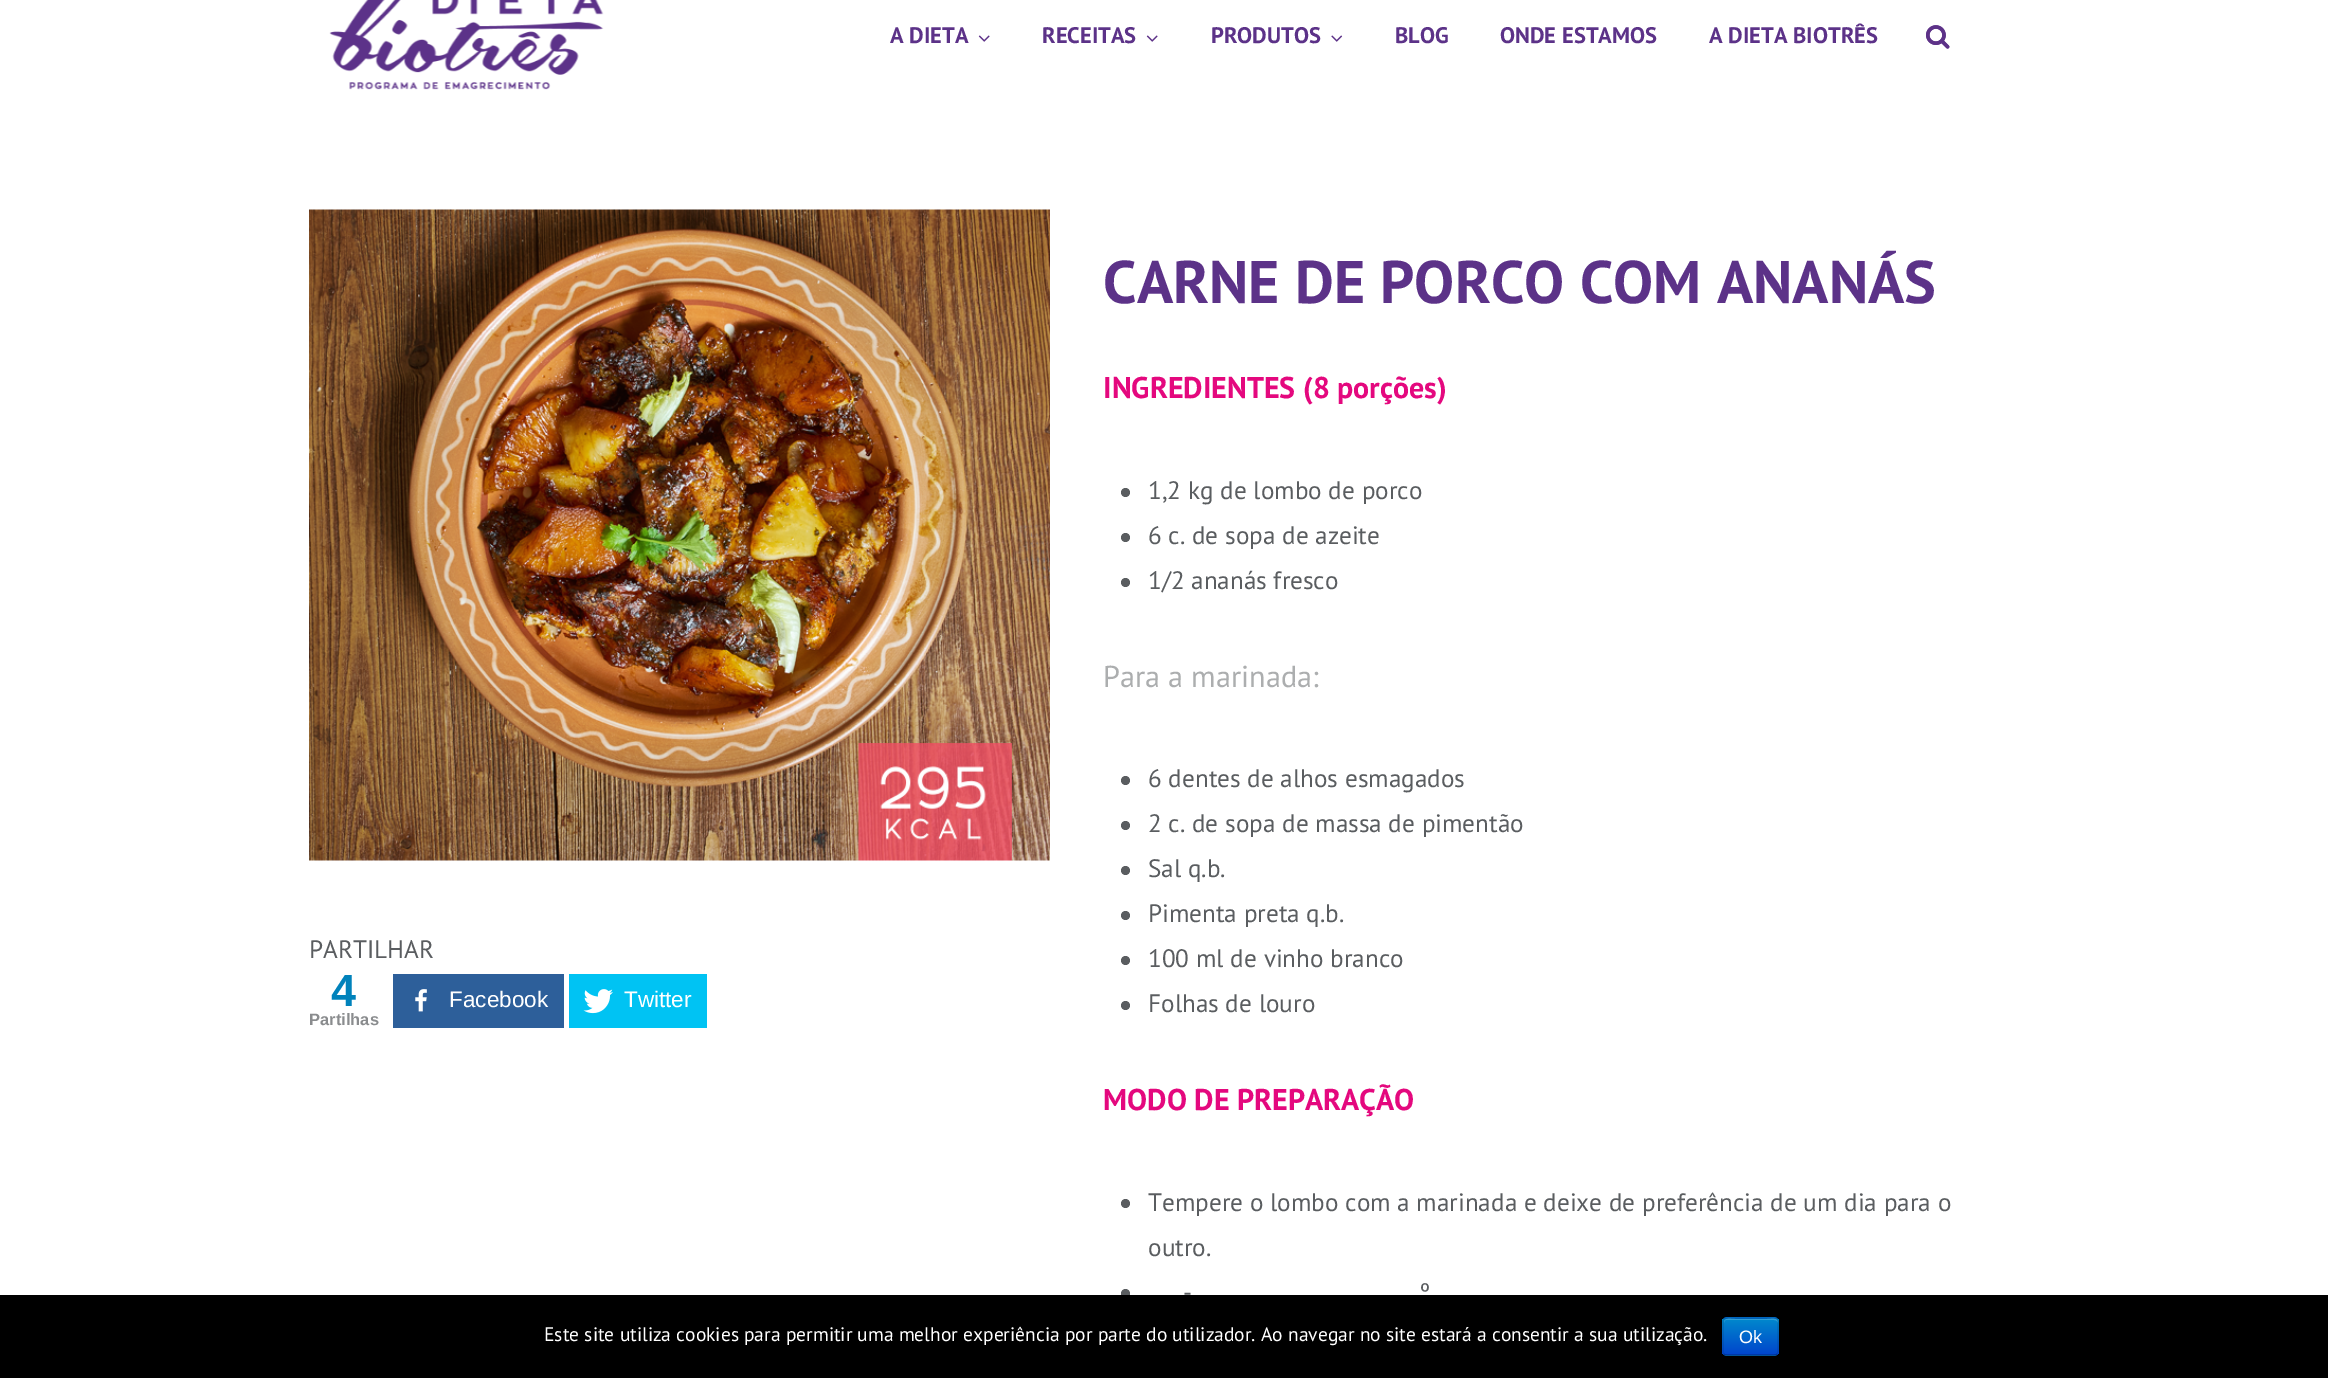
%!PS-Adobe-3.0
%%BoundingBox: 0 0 2328 1378
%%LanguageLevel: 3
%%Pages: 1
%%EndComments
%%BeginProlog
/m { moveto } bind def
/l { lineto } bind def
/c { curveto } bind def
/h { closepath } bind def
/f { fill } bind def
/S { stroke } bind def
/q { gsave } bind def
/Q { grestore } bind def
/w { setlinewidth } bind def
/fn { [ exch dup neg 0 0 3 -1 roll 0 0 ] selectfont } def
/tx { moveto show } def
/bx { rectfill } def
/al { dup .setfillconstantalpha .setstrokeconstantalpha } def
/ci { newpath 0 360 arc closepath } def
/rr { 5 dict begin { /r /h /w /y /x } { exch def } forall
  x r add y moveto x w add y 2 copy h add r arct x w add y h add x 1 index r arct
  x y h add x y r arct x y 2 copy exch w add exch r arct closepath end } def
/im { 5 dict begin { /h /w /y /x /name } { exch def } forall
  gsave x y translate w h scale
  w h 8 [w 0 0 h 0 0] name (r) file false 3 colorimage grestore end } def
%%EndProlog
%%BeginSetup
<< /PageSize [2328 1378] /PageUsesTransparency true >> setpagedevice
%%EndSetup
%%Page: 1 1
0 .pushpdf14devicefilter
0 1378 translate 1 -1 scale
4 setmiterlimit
1 setgray
0 0 2328 1378 bx
(image0.raw) 329 0 275 90 im
/PTSans-Bold 22.5 fn
0.361 0.196 0.533 setrgbcolor
(A DIETA) 890 43 tx
(image1.raw) 978 35 12 7 im
(RECEITAS) 1042 43 tx
(image1.raw) 1146 35 12 7 im
(PRODUTOS) 1211 43 tx
(image2.raw) 1331 35 12 7 im
(BLOG) 1395 43 tx
(ONDE ESTAMOS) 1500 43 tx
(A DIETA BIOTRÊS) 1709 43 tx
(image3.raw) 1926 25 24 24 im
(image4.raw) 1926 25 24 24 im
(image5.raw) 309 209 741 652 im
/PTSans-Regular 25.2 fn
0.353 0.365 0.376 setrgbcolor
(PARTILHAR) 309 958 tx
/LiberationSans-Bold 45 fn
0 0.51 0.733 setrgbcolor
(4) 331 1006 tx
/LiberationSans-Bold 16.5 fn
0.541 0.549 0.557 setrgbcolor
(Partilhas) 309 1025 tx
0.176 0.373 0.604 setrgbcolor
393 974 171 54 bx
(image6.raw) 415 989 12 23 im
/LiberationSans-Regular 22.5 fn
1 setgray
(Facebook) 449 1007 tx
0 0.765 0.953 setrgbcolor
569 974 138 54 bx
(image7.raw) 583 989 30 25 im
1 setgray
(Twitter) 624 1007 tx
/PTSans-Bold 60 fn
0.361 0.196 0.533 setrgbcolor
(CARNE DE PORCO COM ANANÁS) 1103 303 tx
/PTSans-Bold 30 fn
0.894 0.031 0.494 setrgbcolor
(INGREDIENTES \(8 porções\)) 1103 398 tx
0.353 0.365 0.376 setrgbcolor
1125.5 492.5 4.5 ci f
/PTSans-Regular 25.2 fn
(1,2 kg de lombo de porco) 1148 499 tx
1125.5 537.5 4.5 ci f
(6 c. de sopa de azeite) 1148 544 tx
1125.5 582.5 4.5 ci f
(1/2 ananás fresco) 1148 589 tx
/PTSans-Regular 30.25 fn
0.675 0.682 0.686 setrgbcolor
(Para a marinada:) 1103 687 tx
0.353 0.365 0.376 setrgbcolor
1125.5 780.5 4.5 ci f
/PTSans-Regular 25.2 fn
(6 dentes de alhos esmagados) 1148 787 tx
1125.5 825.5 4.5 ci f
(2 c. de sopa de massa de pimentão) 1148 832 tx
1125.5 870.5 4.5 ci f
(Sal q.b.) 1148 877 tx
1125.5 915.5 4.5 ci f
(Pimenta preta q.b.) 1148 922 tx
1125.5 960.5 4.5 ci f
(100 ml de vinho branco) 1148 967 tx
1125.5 1005.5 4.5 ci f
(Folhas de louro) 1148 1012 tx
/PTSans-Bold 30 fn
0.894 0.031 0.494 setrgbcolor
(MODO DE PREPARAÇÃO) 1103 1110 tx
0.353 0.365 0.376 setrgbcolor
1125.5 1203.5 4.5 ci f
/PTSans-Regular 25.2 fn
(Tempere o lombo com a marinada e deixe de preferência de um dia para o) 1148 1211 tx
(outro.) 1148 1256 tx
(º) 1420 1301 tx
1125.5 1293.5 4.5 ci f
(-) 1183 1301 tx
0 setgray
0 1295 2328 83 bx
/PTSans-Regular 19.5 fn
1 setgray
(Este site utiliza cookies para permitir uma melhor experiência por parte do utilizador. Ao navegar no site estará a consentir a sua utilização.) 544 1341 tx
0 0.427 0.8 setrgbcolor
1722 1317 57 39 5 rr f
q
1722 1317 57 39 5 rr clip newpath
q 1722 1319 m 1779 1319 l 1779 1355 l 1722 1355 l h clip newpath
<< /ShadingType 2 /ColorSpace /DeviceRGB /Coords [1751 1319 1751 1355] /Extend [true true] /Function << /FunctionType 2 /Domain [0 1] /C0 [0 0.533 0.8] /C1 [0 0.267 0.8] /N 1 >> >> shfill Q
Q
0.2 0.624 0.839 setrgbcolor
1726 1320 m 1774 1320 l 1776 1320 1778 1321 1778 1323 c 1778 1317 1771 1319 1767 1319 c 1735 1319 l 1731 1319 1724 1317 1724 1323 c 1724 1321 1725 1320 1726 1320 c h f
0.25 al
0 setgray
1.5 w
1777 1354 m 1776.5 1355 1775.5 1355 1774.5 1355 c 1726.5 1355 l 1725.5 1355 1724.5 1355 1724 1354 c S
0.1 al
1724 1354 m 1723 1353.5 1723 1352.5 1723 1351.5 c 1723 1321.5 l 1723 1320.5 1723 1319.5 1724 1319 c 1724.5 1318 1725.5 1318 1726.5 1318 c 1774.5 1318 l 1775.5 1318 1776.5 1318 1777 1319 c 1778 1319.5 1778 1320.5 1778 1321.5 c 1778 1351.5 l 1778 1352.5 1778 1353.5 1777 1354 c S
/LiberationSans-Regular 18 fn
1 al
1 setgray
(Ok) 1739 1343 tx
.poppdf14devicefilter showpage
%%EOF
